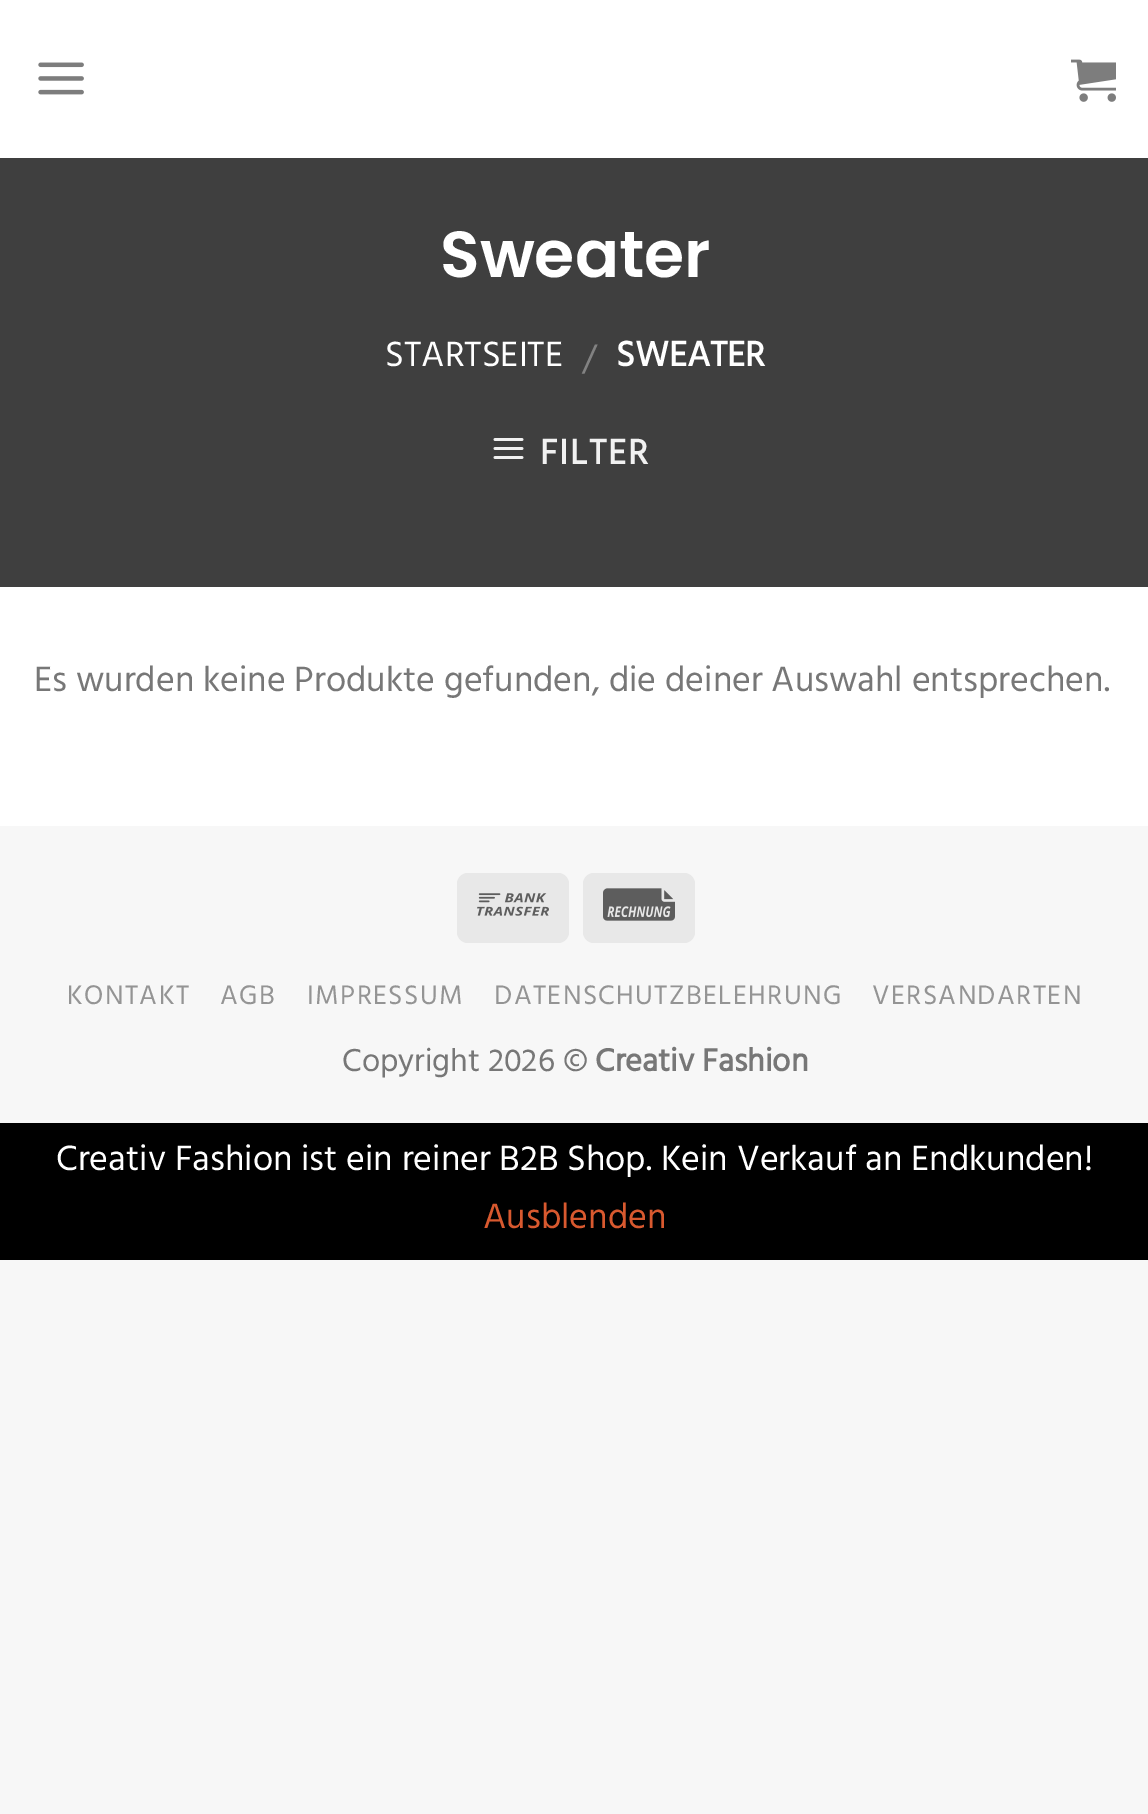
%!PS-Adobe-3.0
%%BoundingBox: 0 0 1148 1814
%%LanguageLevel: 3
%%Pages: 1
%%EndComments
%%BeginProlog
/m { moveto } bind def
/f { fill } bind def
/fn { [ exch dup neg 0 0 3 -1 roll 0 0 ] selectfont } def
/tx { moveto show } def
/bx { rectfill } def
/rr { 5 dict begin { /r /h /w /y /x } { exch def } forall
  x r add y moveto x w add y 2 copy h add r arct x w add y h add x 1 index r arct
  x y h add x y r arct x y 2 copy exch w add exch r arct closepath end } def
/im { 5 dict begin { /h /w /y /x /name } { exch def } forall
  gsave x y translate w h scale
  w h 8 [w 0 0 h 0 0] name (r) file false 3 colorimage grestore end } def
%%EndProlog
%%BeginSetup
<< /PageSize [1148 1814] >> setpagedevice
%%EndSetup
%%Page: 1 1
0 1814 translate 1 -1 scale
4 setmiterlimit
0.969 setgray
0 0 1148 1814 bx
1 setgray
0 0 1148 826 bx
(image0.raw) 38 62 46 33 im
(image1.raw) 1071 59 45 43 im
0.247 setgray
0 158 1148 429 bx
/Poppins-SemiBold 65 fn
1 setgray
(Sweater) 440 277 tx
/Hind-Regular 36 fn
(STARTSEITE) 385 366 tx
0.51 setgray
(/) 582 370 tx
/Hind-Bold 36 fn
1 setgray
(SWEATER) 616 366 tx
(image2.raw) 493 438 31 21 im
0.945 setgray
540 464 m 1.75 0 (FILTER) ashow
/Hind-Regular 36 fn
0.467 setgray
(Es wurden keine Produkte gefunden, die deiner Auswahl entsprechen.) 34 691 tx
0.91 setgray
457 873 112 70 11 rr f
(image3.raw) 477 893 72 23 im
583 873 112 70 11 rr f
(image4.raw) 603 888 72 33 im
/Hind-Regular 27.5 fn
0.58 setgray
67 1004 m 1.4 0 (KONTAKT) ashow
220 1004 m 1.4 0 (AGB) ashow
307 1004 m 1.4 0 (IMPRESSUM) ashow
494 1004 m 1.4 0 (DATENSCHUTZBELEHRUNG) ashow
872 1004 m 1.4 0 (VERSANDARTEN) ashow
/Hind-Regular 32.5 fn
0.467 setgray
(Copyright 2026 ©) 342 1071 tx
/Hind-Bold 32.5 fn
(Creativ Fashion) 595 1071 tx
0 setgray
0 1123 1148 137 bx
/Hind-Regular 36 fn
1 setgray
(Creativ Fashion ist ein reiner B2B Shop. Kein Verkauf an Endkunden!) 56 1170 tx
0.847 0.349 0.184 setrgbcolor
(Ausblenden) 483 1228 tx
showpage
%%EOF
